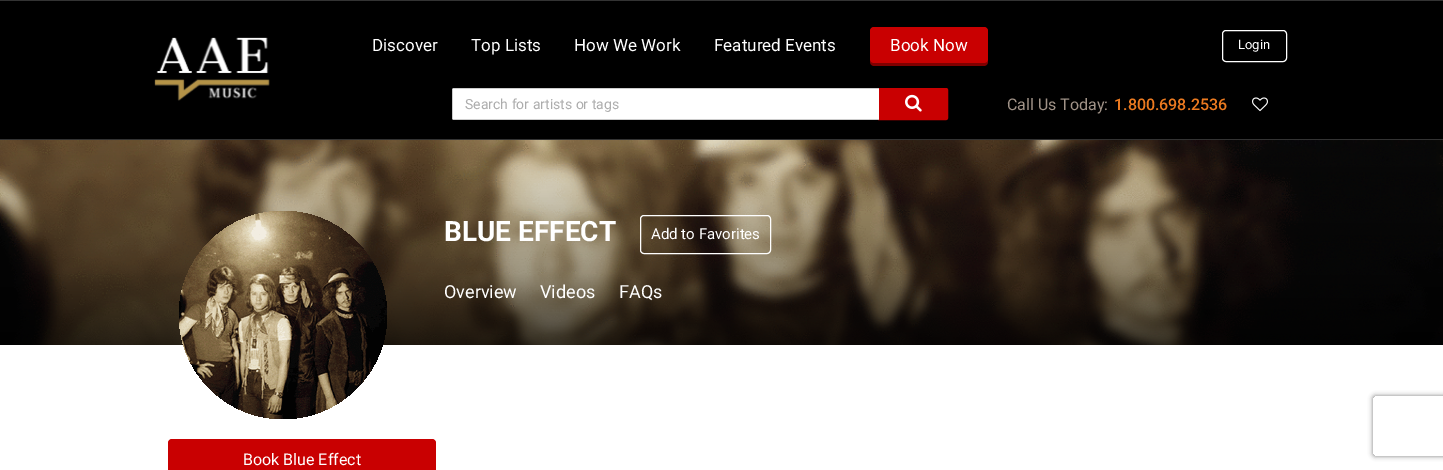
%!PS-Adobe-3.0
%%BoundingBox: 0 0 1443 470
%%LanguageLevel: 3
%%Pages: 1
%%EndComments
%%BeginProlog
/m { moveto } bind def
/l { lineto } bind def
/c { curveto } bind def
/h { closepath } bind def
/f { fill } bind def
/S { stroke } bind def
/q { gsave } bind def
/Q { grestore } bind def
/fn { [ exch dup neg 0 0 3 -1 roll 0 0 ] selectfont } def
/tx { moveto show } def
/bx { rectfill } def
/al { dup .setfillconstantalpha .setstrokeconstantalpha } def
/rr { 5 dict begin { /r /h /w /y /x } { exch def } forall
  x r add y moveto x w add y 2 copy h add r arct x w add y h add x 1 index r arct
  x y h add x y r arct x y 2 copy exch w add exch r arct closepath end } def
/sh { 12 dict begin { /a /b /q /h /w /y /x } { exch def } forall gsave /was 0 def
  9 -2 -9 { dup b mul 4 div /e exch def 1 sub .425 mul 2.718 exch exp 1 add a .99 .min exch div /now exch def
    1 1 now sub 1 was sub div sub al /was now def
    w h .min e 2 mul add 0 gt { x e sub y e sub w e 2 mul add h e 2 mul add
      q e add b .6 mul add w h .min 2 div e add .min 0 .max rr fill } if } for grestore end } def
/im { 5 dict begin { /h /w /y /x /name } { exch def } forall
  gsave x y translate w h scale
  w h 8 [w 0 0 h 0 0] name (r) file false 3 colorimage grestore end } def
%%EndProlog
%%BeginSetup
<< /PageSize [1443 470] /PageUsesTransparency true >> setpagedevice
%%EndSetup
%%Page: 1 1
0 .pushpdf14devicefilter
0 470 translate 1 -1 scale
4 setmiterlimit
1 setgray
0 0 1443 470 bx
0 setgray
0 1 1443 138 bx
0.2 setgray
0 0 1443 1 bx
0 139 1443 1 bx
(image0.raw) 154 37 116 64 im
/Roboto-Regular 17 fn
1 setgray
(Discover) 372 51 tx
(Top Lists) 471 51 tx
(How We Work) 574 51 tx
(Featured Events) 714 51 tx
0.502 0 0 setrgbcolor
870 59 m 870 62 l 870 64 872 66 874 66 c 984 66 l 986 66 988 64 988 62 c 988 59 l 988 61 986 63 984 63 c 874 63 l 872 63 870 61 870 59 c h f
0.788 0 0.004 setrgbcolor
870 27 118 36 4 rr f
1 setgray
(Book Now) 890 51 tx
1222.5 30.5 64 31 3.5 rr S
/Roboto-Regular 13 fn
(Login) 1238 49 tx
0.788 0 0.004 setrgbcolor
878.5 88.5 m 946 88.5 l 947 88.5 947.5 89 947.5 90 c 947.5 118 l 947.5 119 947 119.5 946 119.5 c 878.5 119.5 l h q f Q
S
1 setgray
454 88 m 879 88 l 879 120 l 454 120 l 453 120 452 119 452 118 c 452 90 l 452 89 453 88 454 88 c h f
0.8 setgray
453 88 426 1 bx
453 119 426 1 bx
452 89 1 30 bx
/Roboto-Regular 14 fn
0.675 setgray
(Search for artists or tags) 465 109 tx
(image1.raw) 905 94 17 18 im
/Roboto-Regular 16 fn
0.627 0.573 0.529 setrgbcolor
(Call Us Today:) 1007 110 tx
/Roboto-Medium 16 fn
0.925 0.478 0.125 setrgbcolor
(1.800.698.2536) 1114 110 tx
(image2.raw) 1252 97 16 15 im
(image3.raw) 0 140 1443 205 im
(image4.raw) 179 211 208 208 im
/Roboto-Bold 28 fn
1 setgray
(BLUE EFFECT) 444 241 tx
640.5 215.5 130 38 3.5 rr S
/Roboto-Regular 15 fn
(Add to Favorites) 651 239 tx
/Roboto-Regular 18 fn
(Overview) 444 298 tx
(Videos) 540 298 tx
(FAQs) 619 298 tx
0.788 0 0.004 setrgbcolor
168 439 268 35 4 rr f
/Roboto-Regular 16 fn
1 setgray
(Book Blue Effect) 243 465 tx
q
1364 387 m 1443 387 l 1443 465 l 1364 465 l h 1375 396 m 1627 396 l 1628 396 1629 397 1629 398 c 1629 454 l 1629 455 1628 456 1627 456 c 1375 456 l 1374 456 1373 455 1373 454 c 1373 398 l 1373 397 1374 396 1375 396 c h eoclip newpath
0.502 setgray
1373 396 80 60 2 2.5 1 sh
Q
.poppdf14devicefilter showpage
%%EOF
